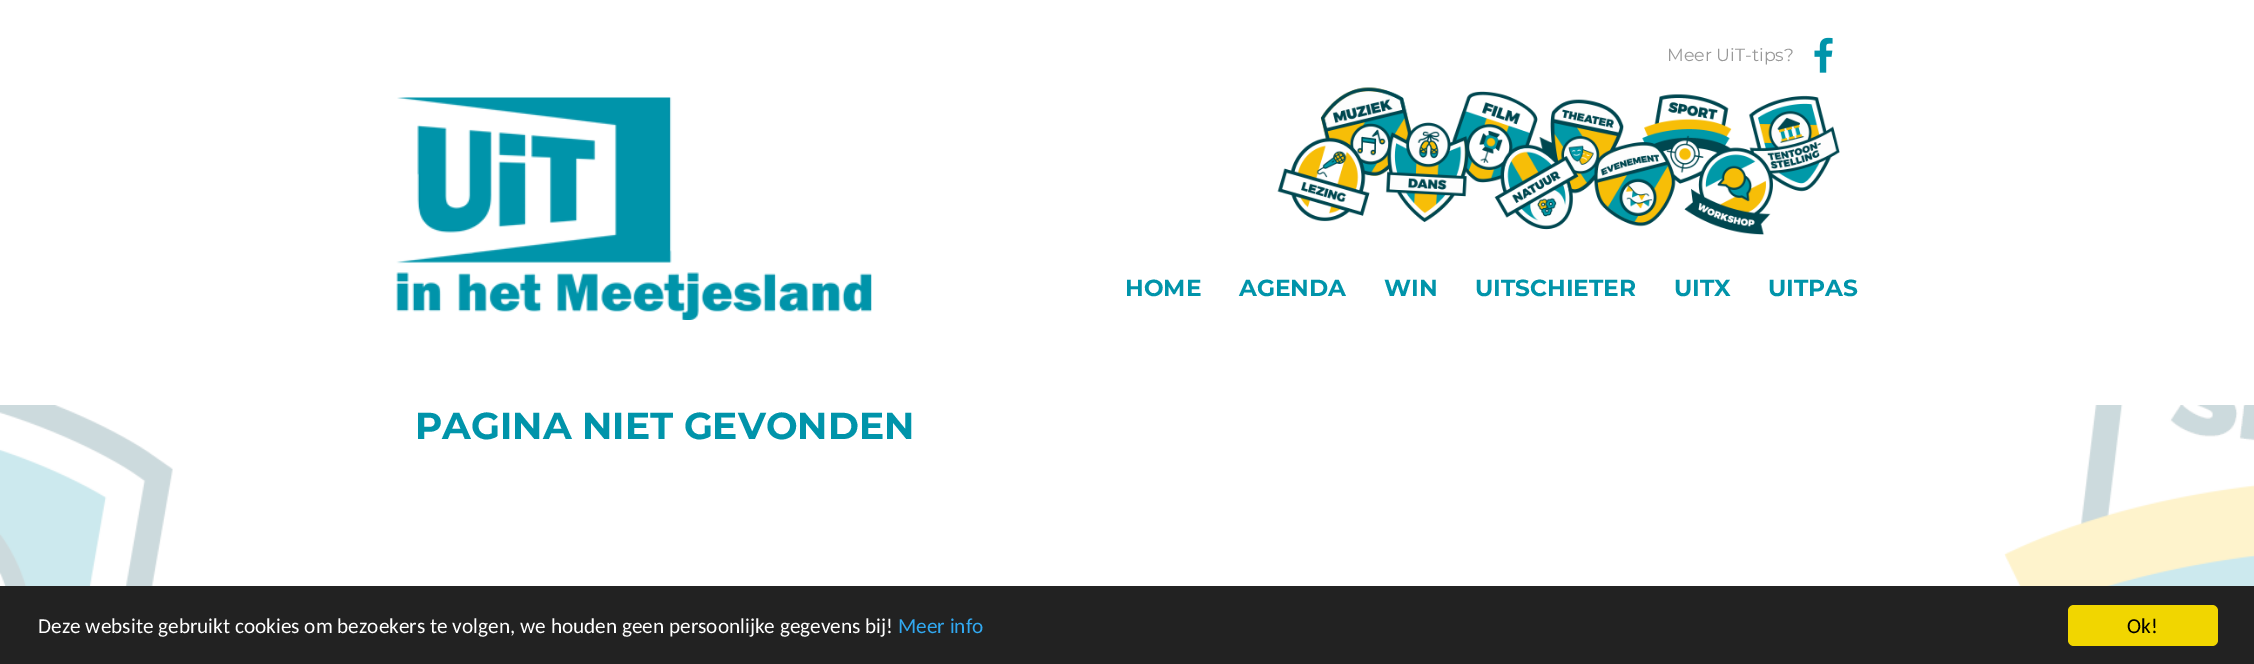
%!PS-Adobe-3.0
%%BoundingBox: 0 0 2254 664
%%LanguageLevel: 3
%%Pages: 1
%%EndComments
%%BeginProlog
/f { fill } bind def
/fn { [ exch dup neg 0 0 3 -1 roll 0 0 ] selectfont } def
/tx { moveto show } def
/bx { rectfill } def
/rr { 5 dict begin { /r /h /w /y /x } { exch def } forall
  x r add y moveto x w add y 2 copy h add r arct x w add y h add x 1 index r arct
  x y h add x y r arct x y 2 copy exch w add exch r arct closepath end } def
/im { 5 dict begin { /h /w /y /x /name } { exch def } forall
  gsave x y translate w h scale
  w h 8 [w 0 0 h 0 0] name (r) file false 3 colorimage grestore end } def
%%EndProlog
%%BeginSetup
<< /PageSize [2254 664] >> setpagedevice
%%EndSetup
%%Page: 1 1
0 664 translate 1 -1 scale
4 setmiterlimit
1 setgray
0 0 2254 664 bx
/Montserrat-Regular 17.5 fn
0.6 setgray
(Meer UiT-tips?) 1667 61 tx
(image0.raw) 1814 37 19 36 im
(image1.raw) 1277 87 563 148 im
(image2.raw) 396 97 476 223 im
/Montserrat-Bold 23.25 fn
0 0.58 0.667 setrgbcolor
(HOME) 1125 296 tx
(AGENDA) 1239 296 tx
(WIN) 1384 296 tx
(UITSCHIETER) 1475 296 tx
(UITX) 1674 296 tx
(UITPAS) 1768 296 tx
(image3.raw) 0 405 2254 181 im
/Montserrat-Bold 37.5 fn
(PAGINA NIET GEVONDEN) 415 439 tx
0.133 setgray
0 586 2254 78 bx
/Carlito-Regular 21.25 fn
1 setgray
(Deze website gebruikt cookies om bezoekers te volgen, we houden geen persoonlijke gegevens bij!) 38 633 tx
0.192 0.659 0.941 setrgbcolor
(Meer info) 898 633 tx
0.945 0.839 0 setrgbcolor
2068 605 150 41 6 rr f
0 setgray
(Ok!) 2127 633 tx
showpage
%%EOF
